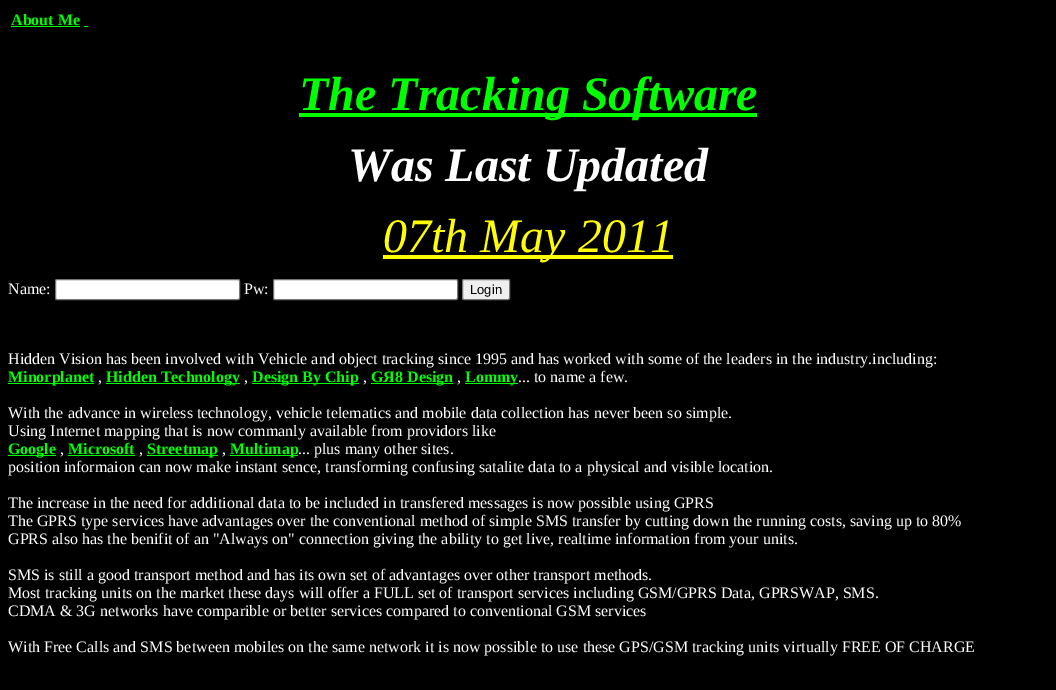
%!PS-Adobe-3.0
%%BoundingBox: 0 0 1056 690
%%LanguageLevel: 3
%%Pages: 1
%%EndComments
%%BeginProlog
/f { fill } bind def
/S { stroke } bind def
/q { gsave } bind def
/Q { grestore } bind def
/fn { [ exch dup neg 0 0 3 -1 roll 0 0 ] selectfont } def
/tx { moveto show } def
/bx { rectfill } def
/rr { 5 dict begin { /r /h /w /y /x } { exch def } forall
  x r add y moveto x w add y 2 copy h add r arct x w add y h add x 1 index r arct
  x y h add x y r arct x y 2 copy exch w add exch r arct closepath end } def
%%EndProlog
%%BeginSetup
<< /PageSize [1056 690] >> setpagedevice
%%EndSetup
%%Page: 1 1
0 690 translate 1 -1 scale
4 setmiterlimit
0 setgray
0 0 1056 690 bx
/LiberationSerif-Bold 16 fn
0 1 0 setrgbcolor
(About Me) 11 25 tx
11 26 69 1 bx
84 26 4 1 bx
299 113 458 4 bx
/LiberationSerif-BoldItalic 48 fn
(The Tracking Software) 299 110 tx
1 setgray
(Was Last Updated) 348 181 tx
1 1 0 setrgbcolor
383 255 290 4 bx
/LiberationSerif-Italic 48 fn
(07th May 2011) 383 252 tx
/LiberationSerif-Regular 16 fn
1 setgray
(Name:) 8 294 tx
55.5 279.5 184 20 1.5 rr q f Q
0.463 setgray
S
1 setgray
(Pw:) 244 294 tx
273.5 279.5 184 20 1.5 rr q f Q
0.463 setgray
S
0.937 setgray
462.5 279.5 47 20 1.5 rr q f Q
0.463 setgray
S
/LiberationSans-Regular 13 fn
0 setgray
(Login) 470 294 tx
/LiberationSerif-Regular 16 fn
1 setgray
(Hidden Vision has been involved with Vehicle and object tracking since 1995 and has worked with some of the leaders in the industry.including:) 8 364 tx
0 1 0 setrgbcolor
8 383 86 1 bx
/LiberationSerif-Bold 16 fn
(Minorplanet) 8 382 tx
/LiberationSerif-Regular 16 fn
1 setgray
(,) 98 382 tx
0 1 0 setrgbcolor
106 383 134 1 bx
/LiberationSerif-Bold 16 fn
(Hidden Technology) 106 382 tx
/LiberationSerif-Regular 16 fn
1 setgray
(,) 244 382 tx
0 1 0 setrgbcolor
252 383 107 1 bx
/LiberationSerif-Bold 16 fn
(Design By Chip) 252 382 tx
/LiberationSerif-Regular 16 fn
1 setgray
(,) 363 382 tx
0 1 0 setrgbcolor
371 383 82 1 bx
/LiberationSerif-Bold 16 fn
(GЯ8 Design) 371 382 tx
/LiberationSerif-Regular 16 fn
1 setgray
(,) 457 382 tx
0 1 0 setrgbcolor
465 383 53 1 bx
/LiberationSerif-Bold 16 fn
(Lommy) 465 382 tx
/LiberationSerif-Regular 16 fn
1 setgray
(... to name a few.) 518 382 tx
(With the advance in wireless technology, vehicle telematics and mobile data collection has never been so simple.) 8 418 tx
(Using Internet mapping that is now commanly available from providors like) 8 436 tx
0 1 0 setrgbcolor
8 455 48 1 bx
/LiberationSerif-Bold 16 fn
(Google) 8 454 tx
/LiberationSerif-Regular 16 fn
1 setgray
(,) 60 454 tx
/LiberationSerif-Bold 16 fn
0 1 0 setrgbcolor
(Microsoft) 68 454 tx
/LiberationSerif-Regular 16 fn
1 setgray
(,) 139 454 tx
0 1 0 setrgbcolor
68 455 67 1 bx
147 455 71 1 bx
/LiberationSerif-Bold 16 fn
(Streetmap) 147 454 tx
/LiberationSerif-Regular 16 fn
1 setgray
(,) 222 454 tx
0 1 0 setrgbcolor
230 455 68 1 bx
/LiberationSerif-Bold 16 fn
(Multimap) 230 454 tx
/LiberationSerif-Regular 16 fn
1 setgray
(... plus many other sites.) 298 454 tx
(position informaion can now make instant sence, transforming confusing satalite data to a physical and visible location.) 8 472 tx
(The increase in the need for additional data to be included in transfered messages is now possible using GPRS) 8 508 tx
(The GPRS type services have advantages over the conventional method of simple SMS transfer by cutting down the running costs, saving up to 80%) 8 526 tx
(GPRS also has the benifit of an "Always on" connection giving the ability to get live, realtime information from your units.) 8 544 tx
(SMS is still a good transport method and has its own set of advantages over other transport methods.) 8 580 tx
(Most tracking units on the market these days will offer a FULL set of transport services including GSM/GPRS Data, GPRSWAP, SMS.) 8 598 tx
(CDMA & 3G networks have comparible or better services compared to conventional GSM services) 8 616 tx
(With Free Calls and SMS between mobiles on the same network it is now possible to use these GPS/GSM tracking units virtually FREE OF CHARGE) 8 652 tx
showpage
%%EOF
